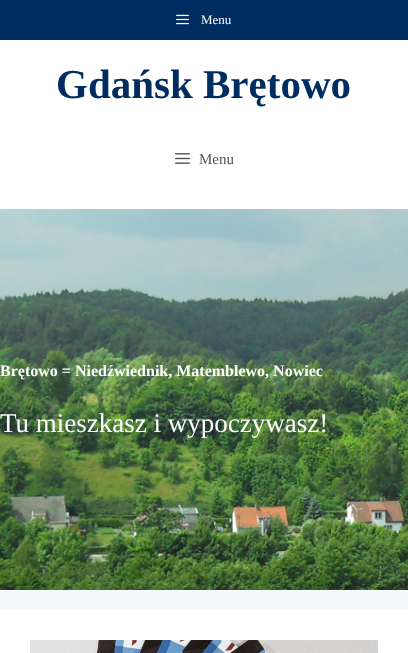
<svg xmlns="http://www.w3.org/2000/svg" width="408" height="653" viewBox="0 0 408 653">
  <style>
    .t1 { font: 13px Liberation Serif; fill: #fff; }
    .t2 { font: bold 41px Liberation Serif; fill: #002d60; }
    .t3 { font: 15px Liberation Serif; fill: #515151; }
    .t4 { font: bold 16px Liberation Serif; fill: #fff; }
    .t5 { font: 27px Liberation Serif; fill: #fff; }
  </style>
  <rect width="100%" height="100%" fill="#f7f8f9"/>
  <rect x="0" y="0" width="408" height="40" fill="#002d60"/>
  <image x="176" y="14" width="13" height="11" href="images/1.png"/>
  <text x="201" y="24" class="t1">Menu</text>
  <rect x="0" y="40" width="408" height="169" fill="#fff"/>
  <text x="56" y="98" class="t2">Gdańsk Brętowo</text>
  <image x="175" y="153" width="15" height="11" href="images/2.png"/>
  <text x="199" y="164" class="t3">Menu</text>
  <image x="0" y="209" width="408" height="381" href="images/3.png"/>
  <text x="0" y="376" class="t4">Brętowo = Niedźwiednik, Matemblewo, Nowiec</text>
  <text x="0" y="432" class="t5">Tu mieszkasz i wypoczywasz!</text>
  <rect x="0" y="610" width="408" height="43" fill="#fff"/>
  <image x="30" y="640" width="348" height="13" href="images/4.png"/>
</svg>
